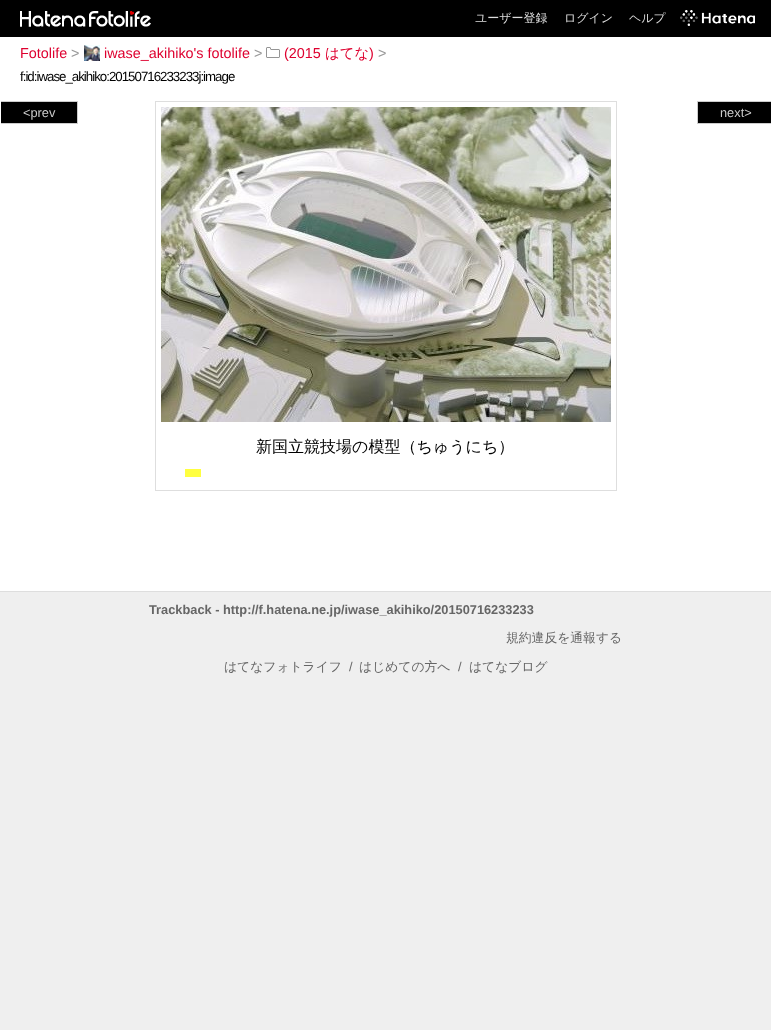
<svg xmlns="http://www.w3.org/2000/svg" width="771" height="1030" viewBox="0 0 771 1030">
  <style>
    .t1 { font: 500 12px WenQuanYi Zen Hei; fill: #ddd; }
    .t2 { font: 14.4px Liberation Sans; fill: #de002f; }
    .t3 { font: 14.4px Liberation Sans; fill: #999; }
    .t4 { font: 500 14.4px WenQuanYi Zen Hei; fill: #de002f; }
    .t5 { font: 13.3px Liberation Sans; letter-spacing: -1px; fill: #000; }
    .t6 { font: 12.8px Liberation Sans; fill: #ccc; }
    .t7 { font: 500 16px WenQuanYi Zen Hei; fill: #000; }
    .t8 { font: bold 12.8px Liberation Sans; fill: #666; }
    .t9 { font: 500 12.8px WenQuanYi Zen Hei; fill: #666; }
    .t10 { font: 12.8px Liberation Sans; fill: #666; }
  </style>
  <rect width="100%" height="100%" fill="#efefef"/>
  <rect x="0" y="0" width="771" height="37" fill="#000"/>
  <image x="20" y="11" width="66" height="16" href="images/1.png"/>
  <image x="89" y="11" width="62" height="16" href="images/2.png"/>
  <text x="475" y="22" class="t1">ユーザー登録</text>
  <text x="564" y="22" class="t1">ログイン</text>
  <text x="629" y="22" class="t1">ヘルプ</text>
  <image x="680" y="10" width="75" height="16" href="images/3.png"/>
  <rect x="0" y="37" width="771" height="554" fill="#fff"/>
  <text x="20" y="58" class="t2">Fotolife</text>
  <text x="71" y="58" class="t3">&gt;</text>
  <image x="84" y="45" width="16" height="16" href="images/4.png"/>
  <text x="104" y="58" class="t2">iwase_akihiko's fotolife</text>
  <text x="254" y="58" class="t3">&gt;</text>
  <image x="266" y="47" width="14" height="11" href="images/5.png"/>
  <text x="284" y="58" class="t2">(2015</text>
  <text x="325" y="58" class="t4">はてな</text>
  <text x="369" y="58" class="t2">)</text>
  <text x="378" y="58" class="t3">&gt;</text>
  <text x="20" y="81" class="t5">f:id:iwase_akihiko:20150716233233j:image</text>
  <rect x="0" y="591" width="771" height="1" fill="#dedede"/>
  <rect x="1" y="102" width="76" height="21" fill="#000"/>
  <rect x="1" y="101" width="77" height="1" fill="#ccc"/>
  <rect x="77" y="101" width="1" height="23" fill="#ccc"/>
  <rect x="1" y="123" width="77" height="1" fill="#ccc"/>
  <text x="23" y="117" class="t6">&lt;prev</text>
  <rect x="698" y="102" width="73" height="21" fill="#000"/>
  <rect x="697" y="101" width="74" height="1" fill="#ccc"/>
  <rect x="697" y="123" width="74" height="1" fill="#ccc"/>
  <rect x="697" y="101" width="1" height="23" fill="#ccc"/>
  <text x="720" y="117" class="t6">next&gt;</text>
  <rect x="155.5" y="101.5" width="461" height="389" fill="none" stroke="#dedede"/>
  <image x="161" y="107" width="450" height="315" href="images/6.png"/>
  <text x="256" y="452" class="t7">新国立競技場の模型（ちゅうにち）</text>
  <rect x="185" y="469" width="16" height="8" fill="#ffff40"/>
  <text x="149" y="614" class="t8">Trackback - http://f.hatena.ne.jp/iwase_akihiko/20150716233233</text>
  <text x="506" y="642" class="t9">規約違反を通報する</text>
  <text x="224" y="671" class="t9">はてなフォトライフ</text>
  <text x="349" y="671" class="t10">/</text>
  <text x="359" y="671" class="t9">はじめての方へ</text>
  <text x="458" y="671" class="t10">/</text>
  <text x="469" y="671" class="t9">はてなブログ</text>
</svg>
